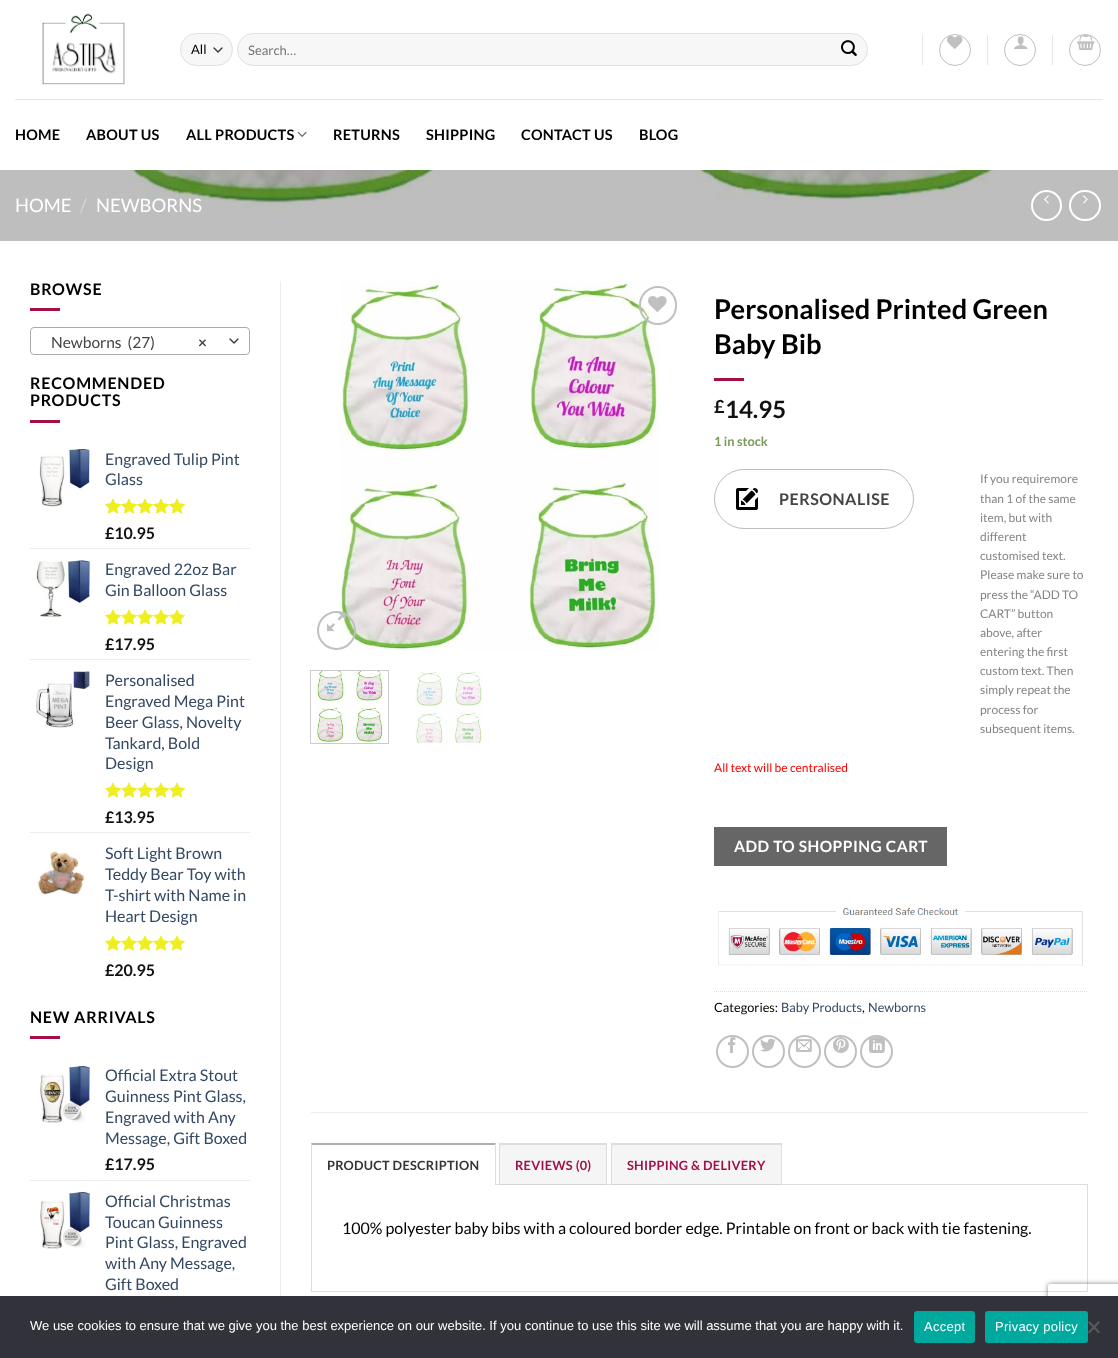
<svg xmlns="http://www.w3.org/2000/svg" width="1118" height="1358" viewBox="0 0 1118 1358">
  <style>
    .t1 { font: 13px Lato; fill: #000; }
    .t2 { font: 13px Lato; fill: #757575; }
    .t3 { font: bold 14.5px Lato; letter-spacing: 0.25px; fill: #000; }
    .t4 { font: 18.5px Lato; fill: #fff; }
    .t5 { font: 18.5px Lato; fill: #d5d5d5; }
    .t6 { font: bold 16px Lato; letter-spacing: 0.75px; fill: #000; }
    .t7 { font: 15.5px Lato; fill: #444; }
    .t8 { font: bold 15.5px Lato; fill: #444; }
    .t9 { font: 16px Lato; fill: #334862; }
    .t10 { font: bold 16px Lato; fill: #111; }
    .t11 { font: bold 27.25px Lato; fill: #000; }
    .t12 { font: bold 18px Lato; fill: #111; }
    .t13 { font: bold 24px Lato; fill: #111; }
    .t14 { font: bold 12.75px Lato; fill: #7a9c59; }
    .t15 { font: bold 16px Lato; letter-spacing: 0.5px; fill: #444; }
    .t16 { font: 12px Lato; fill: #858585; }
    .t17 { font: 12px Lato; fill: #f00; }
    .t18 { font: bold 15.5px Lato; letter-spacing: 0.5px; fill: #fff; }
    .t19 { font: 12.75px Lato; fill: #000; }
    .t20 { font: 12.75px Lato; fill: #334862; }
    .t21 { font: bold 12.75px Lato; letter-spacing: 0.25px; fill: #353535; }
    .t22 { font: bold 12.75px Lato; letter-spacing: 0.25px; fill: #a30f48; }
    .t23 { font: 16px Lato; fill: #000; }
    .t24 { font: 13px Liberation Sans; fill: #fff; }
    .t25 { font: 13px Liberation Sans; letter-spacing: 0.25px; fill: #fff; }
  </style>
  <defs>
    <clipPath id="clip1"><path d="M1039 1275H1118V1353H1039ZM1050 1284H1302C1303 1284 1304 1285 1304 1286V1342C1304 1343 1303 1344 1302 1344H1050C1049 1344 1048 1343 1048 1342V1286C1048 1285 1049 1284 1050 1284Z" clip-rule="evenodd"/></clipPath>
  </defs>
  <rect width="100%" height="100%" fill="#fff"/>
  <image x="42" y="13" width="83" height="72" href="images/1.png"/>
  <rect x="180" y="33" width="53" height="33" rx="16.5" fill="#f7f7f7"/>
  <path d="M214 48L218 52L222 48" fill="none" stroke="#333" stroke-width="1.3" stroke-linecap="round" stroke-linejoin="round"/>
  <rect x="180.5" y="33.5" width="52" height="32" rx="16" fill="none" stroke="#00000017"/>
  <text x="191" y="54" class="t1">All</text>
  <rect x="237" y="33" width="631" height="33" rx="16.5" fill="#f7f7f7"/>
  <rect x="237.5" y="33.5" width="630" height="32" rx="16" fill="none" stroke="#00000017"/>
  <text x="248" y="55" class="t2">Search…</text>
  <image x="841" y="40" width="16" height="16" href="images/2.png"/>
  <rect x="922" y="35" width="1" height="30" fill="#e6e6e6"/>
  <circle cx="955" cy="50" r="15.5" fill="none" stroke="#c0c0c0"/>
  <image x="947" y="35" width="16" height="14" href="images/3.png"/>
  <rect x="987" y="35" width="1" height="30" fill="#e6e6e6"/>
  <circle cx="1020" cy="50" r="15.5" fill="none" stroke="#c0c0c0"/>
  <image x="1014" y="36" width="14" height="13" href="images/4.png"/>
  <rect x="1052" y="35" width="1" height="30" fill="#e6e6e6"/>
  <circle cx="1085" cy="50" r="15.5" fill="none" stroke="#c0c0c0"/>
  <image x="1077" y="35" width="18" height="16" href="images/5.png"/>
  <rect x="15" y="99" width="1088" height="1" fill="#e6e6e6"/>
  <text x="15" y="140" class="t3">HOME</text>
  <text x="86" y="140" class="t3">ABOUT US</text>
  <text x="186" y="140" class="t3">ALL PRODUCTS</text>
  <image x="297" y="131" width="10" height="6" href="images/6.png"/>
  <text x="333" y="140" class="t3">RETURNS</text>
  <text x="426" y="140" class="t3">SHIPPING</text>
  <text x="521" y="140" class="t3">CONTACT US</text>
  <text x="639" y="140" class="t3">BLOG</text>
  <image x="0" y="170" width="1118" height="71" href="images/7.png"/>
  <text x="15" y="212" class="t4">HOME</text>
  <text x="80" y="212" class="t5">/</text>
  <text x="96" y="212" class="t4">NEWBORNS</text>
  <circle cx="1046.5" cy="205.5" r="14.5" fill="none" stroke="#fff" stroke-width="2"/>
  <image x="1044" y="195" width="5" height="9" href="images/8.png"/>
  <rect x="1070" y="191" width="30" height="29" rx="14.5" fill="none" stroke="#fff" stroke-width="2"/>
  <image x="1083" y="195" width="5" height="9" href="images/9.png"/>
  <text x="30" y="295" class="t6">BROWSE</text>
  <rect x="30" y="308" width="30" height="3" fill="#a30f48"/>
  <path d="M230 339L234 343L238 339" fill="none" stroke="#333" stroke-width="1.3" stroke-linecap="round" stroke-linejoin="round"/>
  <rect x="30.5" y="327.5" width="219" height="27" rx="3.5" fill="none" stroke="#aaa"/>
  <text x="51" y="348" class="t7" xml:space="preserve">Newborns  (27)</text>
  <text x="198" y="348" class="t8">×</text>
  <text x="30" y="389" class="t6">RECOMMENDED</text>
  <text x="30" y="406" class="t6">PRODUCTS</text>
  <rect x="30" y="420" width="30" height="3" fill="#a30f48"/>
  <image x="39" y="449" width="51" height="58" href="images/10.png"/>
  <text x="105" y="465" class="t9">Engraved Tulip Pint</text>
  <text x="105" y="485" class="t9">Glass</text>
  <image x="105" y="498" width="80" height="16" href="images/11.png"/>
  <image x="105" y="498" width="80" height="16" href="images/12.png"/>
  <text x="105" y="539" class="t10">£10.95</text>
  <rect x="30" y="548" width="220" height="1" fill="#ececec"/>
  <image x="36" y="559" width="54" height="58" href="images/13.png"/>
  <text x="105" y="575" class="t9">Engraved 22oz Bar</text>
  <text x="105" y="596" class="t9">Gin Balloon Glass</text>
  <image x="105" y="609" width="80" height="16" href="images/11.png"/>
  <image x="105" y="609" width="80" height="16" href="images/12.png"/>
  <text x="105" y="650" class="t10">£17.95</text>
  <rect x="30" y="659" width="220" height="1" fill="#ececec"/>
  <image x="36" y="670" width="54" height="58" href="images/14.png"/>
  <text x="105" y="686" class="t9">Personalised</text>
  <text x="105" y="707" class="t9">Engraved Mega Pint</text>
  <text x="105" y="728" class="t9">Beer Glass, Novelty</text>
  <text x="105" y="749" class="t9">Tankard, Bold</text>
  <text x="105" y="769" class="t9">Design</text>
  <image x="105" y="782" width="80" height="16" href="images/11.png"/>
  <image x="105" y="782" width="80" height="16" href="images/12.png"/>
  <text x="105" y="823" class="t10">£13.95</text>
  <rect x="30" y="832" width="220" height="1" fill="#ececec"/>
  <image x="35" y="849" width="52" height="47" href="images/15.png"/>
  <text x="105" y="859" class="t9">Soft Light Brown</text>
  <text x="105" y="880" class="t9">Teddy Bear Toy with</text>
  <text x="105" y="901" class="t9">T-shirt with Name in</text>
  <text x="105" y="922" class="t9">Heart Design</text>
  <image x="105" y="935" width="80" height="16" href="images/11.png"/>
  <image x="105" y="935" width="80" height="16" href="images/12.png"/>
  <text x="105" y="976" class="t10">£20.95</text>
  <text x="30" y="1023" class="t6">NEW ARRIVALS</text>
  <rect x="30" y="1036" width="30" height="3" fill="#a30f48"/>
  <image x="40" y="1065" width="50" height="58" href="images/16.png"/>
  <text x="105" y="1081" class="t9">Official Extra Stout</text>
  <text x="105" y="1102" class="t9">Guinness Pint Glass,</text>
  <text x="105" y="1123" class="t9">Engraved with Any</text>
  <text x="105" y="1144" class="t9">Message, Gift Boxed</text>
  <text x="105" y="1170" class="t10">£17.95</text>
  <rect x="30" y="1180" width="220" height="1" fill="#ececec"/>
  <image x="40" y="1191" width="50" height="58" href="images/17.png"/>
  <text x="105" y="1207" class="t9">Official Christmas</text>
  <text x="105" y="1228" class="t9">Toucan Guinness</text>
  <text x="105" y="1248" class="t9">Pint Glass, Engraved</text>
  <text x="105" y="1269" class="t9">with Any Message,</text>
  <text x="105" y="1290" class="t9">Gift Boxed</text>
  <rect x="280" y="281" width="1" height="1015" fill="#ececec"/>
  <image x="340" y="281" width="320" height="370" href="images/18.png"/>
  <rect x="640" y="287" width="36" height="37" rx="18" fill="none" stroke="#c0c0c0" stroke-width="2"/>
  <image x="648" y="296" width="19" height="16" href="images/19.png"/>
  <circle cx="336.5" cy="630.5" r="18.5" fill="none" stroke="#c0c0c0" stroke-width="2"/>
  <image x="327" y="612" width="19" height="20" href="images/20.png"/>
  <rect x="310.5" y="670.5" width="78" height="73" fill="none" stroke="#ccc"/>
  <image x="315" y="671" width="70" height="72" href="images/21.png"/>
  <image x="414" y="671" width="69" height="72" href="images/22.png"/>
  <text x="714" y="319" class="t11">Personalised Printed Green</text>
  <text x="714" y="354" class="t11">Baby Bib</text>
  <rect x="714" y="378" width="30" height="3" fill="#a30f48"/>
  <text x="714" y="413" class="t12">£</text>
  <text x="725" y="418" class="t13">14.95</text>
  <text x="714" y="446" class="t14">1 in stock</text>
  <rect x="714.5" y="469.5" width="199" height="59" rx="29.5" fill="none" stroke="#bcbcbd"/>
  <image x="736" y="488" width="22" height="22" href="images/23.png"/>
  <text x="779" y="505" class="t15">PERSONALISE</text>
  <text x="980" y="483" class="t16">If you requiremore</text>
  <text x="980" y="503" class="t16">than 1 of the same</text>
  <text x="980" y="522" class="t16">item, but with</text>
  <text x="980" y="541" class="t16">different</text>
  <text x="980" y="560" class="t16">customised text.</text>
  <text x="980" y="579" class="t16">Please make sure to</text>
  <text x="980" y="599" class="t16">press the “ADD TO</text>
  <text x="980" y="618" class="t16">CART” button</text>
  <text x="980" y="637" class="t16">above, after</text>
  <text x="980" y="656" class="t16">entering the first</text>
  <text x="980" y="675" class="t16">custom text. Then</text>
  <text x="980" y="694" class="t16">simply repeat the</text>
  <text x="980" y="714" class="t16">process for</text>
  <text x="980" y="733" class="t16">subsequent items.</text>
  <text x="714" y="772" class="t17">All text will be centralised</text>
  <rect x="714" y="827" width="233" height="39" fill="#666"/>
  <text x="734" y="852" class="t18">ADD TO SHOPPING CART</text>
  <image x="718" y="908" width="365" height="58" href="images/24.png"/>
  <path d="M714 991.5H1088" fill="none" stroke="#ddd" stroke-dasharray="1 1"/>
  <text x="714" y="1012" class="t19">Categories:</text>
  <text x="781" y="1012" class="t20">Baby Products</text>
  <text x="862" y="1012" class="t19">,</text>
  <text x="868" y="1012" class="t20">Newborns</text>
  <circle cx="732.5" cy="1051.5" r="15.5" fill="none" stroke="#c0c0c0" stroke-width="2"/>
  <image x="728" y="1037" width="8" height="16" href="images/25.png"/>
  <circle cx="768.5" cy="1051.5" r="15.5" fill="none" stroke="#c0c0c0" stroke-width="2"/>
  <image x="760" y="1038" width="16" height="14" href="images/26.png"/>
  <circle cx="804.5" cy="1051.5" r="15.5" fill="none" stroke="#c0c0c0" stroke-width="2"/>
  <image x="796" y="1039" width="16" height="13" href="images/27.png"/>
  <circle cx="840.5" cy="1051.5" r="15.5" fill="none" stroke="#c0c0c0" stroke-width="2"/>
  <image x="833" y="1037" width="16" height="16" href="images/28.png"/>
  <circle cx="876.5" cy="1051.5" r="15.5" fill="none" stroke="#c0c0c0" stroke-width="2"/>
  <image x="869" y="1037" width="16" height="16" href="images/29.png"/>
  <rect x="311" y="1112" width="777" height="1" fill="#ececec"/>
  <rect x="311.5" y="1184.5" width="776" height="107" fill="none" stroke="#ddd"/>
  <rect x="311" y="1184" width="185" height="1" fill="#fff"/>
  <path d="M311 1143H496L495 1145H312Z" fill="#afafaf"/>
  <path d="M496 1143V1185H495V1145Z" fill="#ddd"/>
  <path d="M311 1185V1143L312 1145V1185Z" fill="#ddd"/>
  <text x="327" y="1170" class="t21">PRODUCT DESCRIPTION</text>
  <rect x="500" y="1145" width="106" height="40" fill="#0000000a"/>
  <rect x="499" y="1143" width="108" height="2" fill="#ddd"/>
  <rect x="606" y="1143" width="1" height="42" fill="#ddd"/>
  <rect x="499" y="1143" width="1" height="42" fill="#ddd"/>
  <text x="515" y="1170" class="t22">REVIEWS (0)</text>
  <rect x="612" y="1145" width="169" height="40" fill="#0000000a"/>
  <rect x="611" y="1143" width="171" height="2" fill="#ddd"/>
  <rect x="781" y="1143" width="1" height="42" fill="#ddd"/>
  <rect x="611" y="1143" width="1" height="42" fill="#ddd"/>
  <text x="627" y="1170" class="t22">SHIPPING &amp; DELIVERY</text>
  <text x="342" y="1234" class="t23">100% polyester baby bibs with a coloured border edge. Printable on front or back with tie fastening.</text>
  <g clip-path="url(#clip1)">
    <rect x="1048" y="1284" width="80" height="60" rx="2" fill="#808080" filter="blur(2.5px)"/>
  </g>
  <rect x="0" y="1296" width="1118" height="62" fill="#32323a"/>
  <text x="30" y="1330" class="t24">We use cookies to ensure that we give you the best experience on our website. If you continue to use this site we will assume that you are happy with it.</text>
  <rect x="914" y="1311" width="61" height="32" rx="3" fill="#00a99d"/>
  <text x="924" y="1331" class="t25">Accept</text>
  <rect x="985" y="1311" width="103" height="32" rx="3" fill="#00a99d"/>
  <text x="995" y="1331" class="t25">Privacy policy</text>
  <path d="M1098.5 1321L1100 1322.5L1089.5 1333.5L1088 1332Z" fill="#59595d"/>
  <path d="M1088 1322.5L1089.5 1321L1100 1332L1098.5 1333.5Z" fill="#59595d"/>
</svg>
